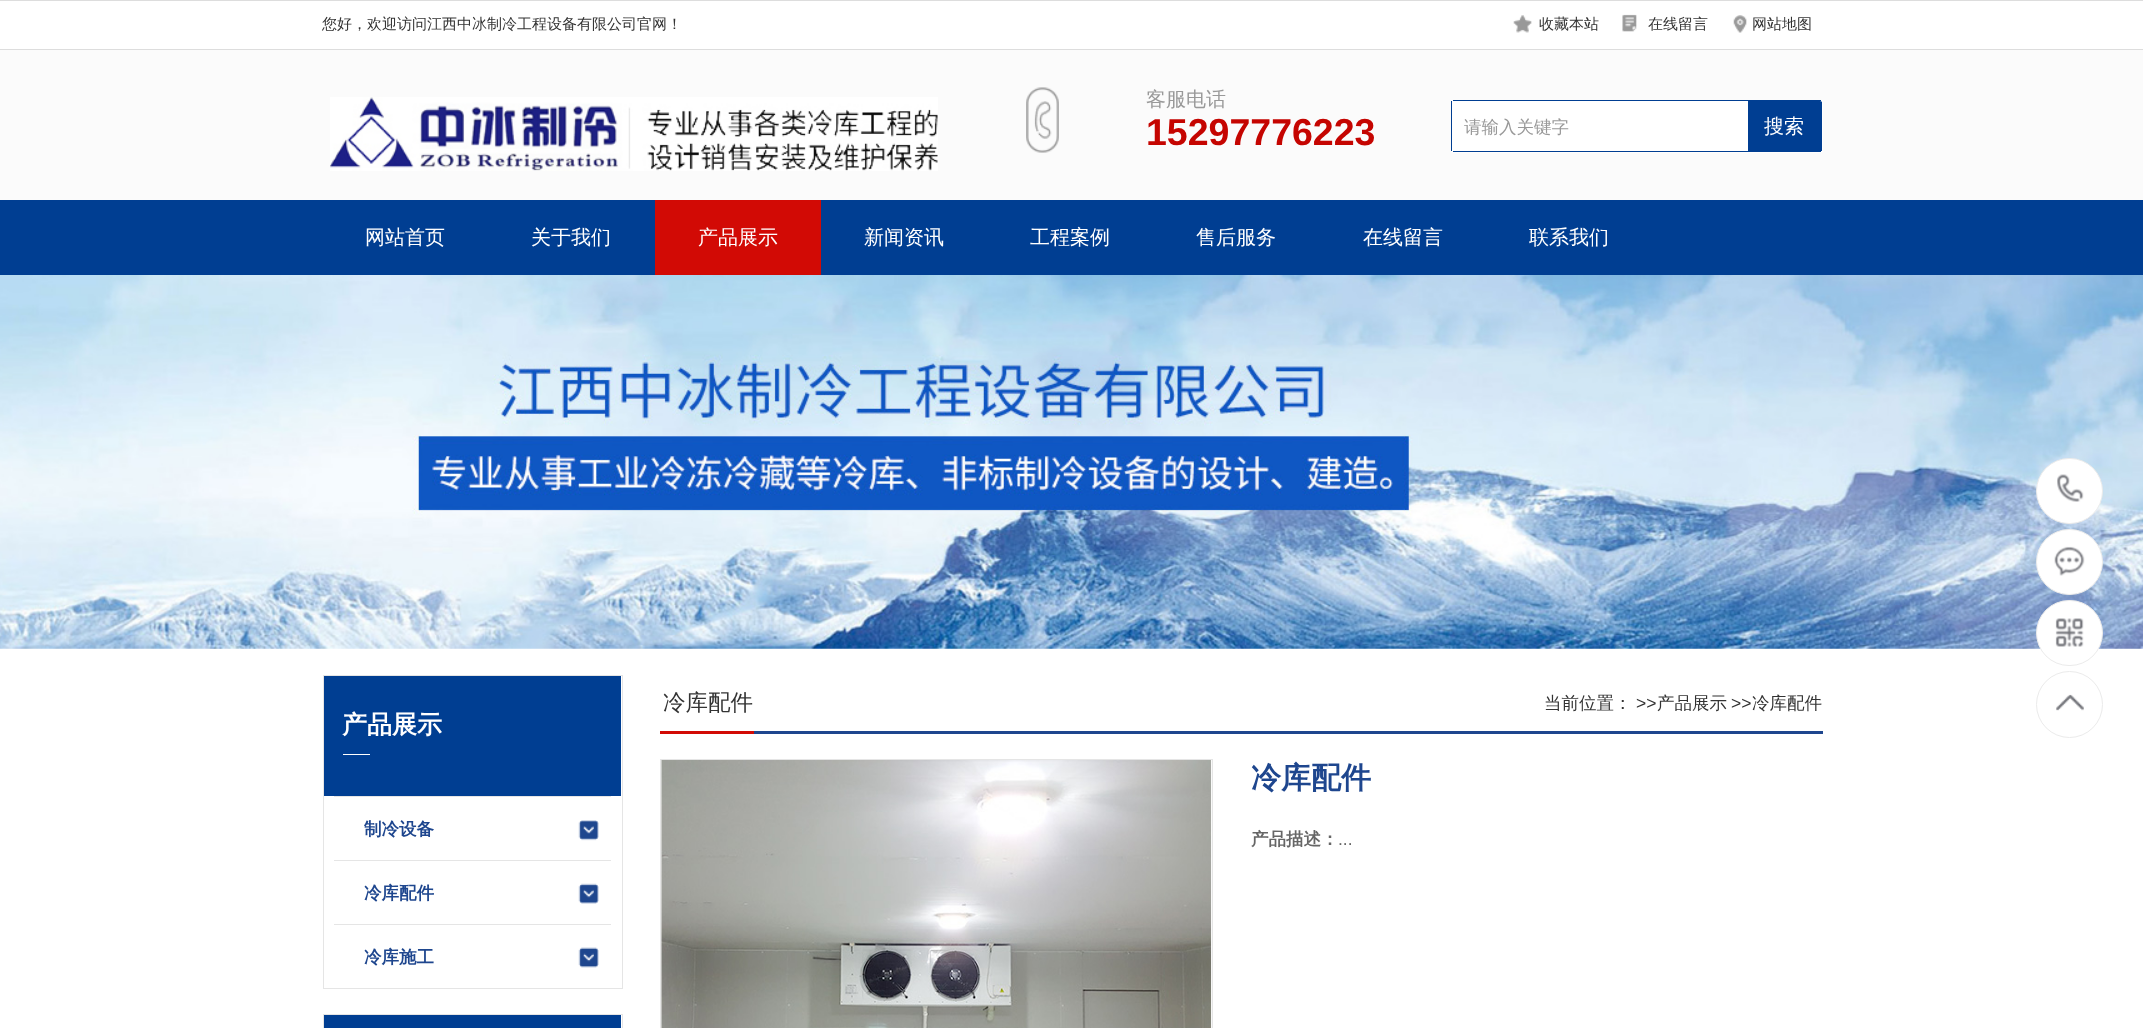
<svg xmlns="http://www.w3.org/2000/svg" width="2143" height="1028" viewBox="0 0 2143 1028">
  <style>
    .t1 { font: 500 15px WenQuanYi Zen Hei; fill: #333; }
    .t2 { font: 500 20px WenQuanYi Zen Hei; fill: #999; }
    .t3 { font: bold 37.5px Liberation Sans; fill: #c50501; }
    .t4 { font: 500 17.5px WenQuanYi Zen Hei; fill: #999; }
    .t5 { font: 500 20px WenQuanYi Zen Hei; fill: #fff; }
    .t6 { font: bold 25px WenQuanYi Zen Hei; fill: #fff; }
    .t7 { font: bold 17.5px WenQuanYi Zen Hei; fill: #1e468e; }
    .t8 { font: 500 22.5px WenQuanYi Zen Hei; fill: #333; }
    .t9 { font: 500 17.5px WenQuanYi Zen Hei; fill: #333; }
    .t10 { font: 17.5px Liberation Sans; fill: #333; }
    .t11 { font: bold 30px WenQuanYi Zen Hei; fill: #1e468e; }
    .t12 { font: bold 17.5px WenQuanYi Zen Hei; fill: #666; }
    .t13 { font: 17.5px Liberation Sans; fill: #666; }
  </style>
  <rect width="100%" height="100%" fill="#fff"/>
  <rect x="0" y="50" width="2143" height="150" fill="#fbfbfb"/>
  <rect x="0" y="0" width="2143" height="1" fill="#ddd"/>
  <rect x="0" y="49" width="2143" height="1" fill="#ddd"/>
  <text x="322" y="29" class="t1">您好，欢迎访问江西中冰制冷工程设备有限公司官网！</text>
  <image x="1513" y="15" width="19" height="18" href="images/1.png"/>
  <text x="1539" y="29" class="t1">收藏本站</text>
  <image x="1622" y="14" width="15" height="18" href="images/2.png"/>
  <text x="1648" y="29" class="t1">在线留言</text>
  <image x="1733" y="15" width="14" height="18" href="images/3.png"/>
  <text x="1752" y="29" class="t1">网站地图</text>
  <image x="330" y="97" width="608" height="74" href="images/4.png"/>
  <image x="1026" y="87" width="33" height="66" href="images/5.png"/>
  <text x="1146" y="106" class="t2">客服电话</text>
  <text x="1146" y="145" class="t3">15297776223</text>
  <rect x="1451" y="100" width="372" height="53" rx="2.5" fill="#fff"/>
  <rect x="1453" y="100" width="368" height="1" fill="#003e92"/>
  <rect x="1453" y="151" width="368" height="1" fill="#003e92"/>
  <rect x="1451" y="101" width="1" height="50" fill="#003e92"/>
  <text x="1464" y="133" class="t4">请输入关键字</text>
  <path d="M1822 151H1748V101H1820C1821 101 1822 102 1822 102V150Z" fill="#003e92"/>
  <text x="1764" y="133" class="t5">搜索</text>
  <rect x="0" y="200" width="2143" height="75" fill="#003e92"/>
  <text x="365" y="244" class="t5">网站首页</text>
  <text x="531" y="244" class="t5">关于我们</text>
  <rect x="655" y="200" width="166" height="75" fill="#d20a05"/>
  <text x="698" y="244" class="t5">产品展示</text>
  <text x="864" y="244" class="t5">新闻资讯</text>
  <text x="1030" y="244" class="t5">工程案例</text>
  <text x="1196" y="244" class="t5">售后服务</text>
  <text x="1363" y="244" class="t5">在线留言</text>
  <text x="1529" y="244" class="t5">联系我们</text>
  <image x="0" y="275" width="2143" height="374" href="images/6.png"/>
  <rect x="2036.5" y="458.5" width="66" height="65" rx="32.5" fill="#fff" stroke="#ebebeb"/>
  <image x="2057" y="474" width="27" height="28" href="images/7.png"/>
  <rect x="2036.5" y="529.5" width="66" height="65" rx="32.5" fill="#fff" stroke="#ebebeb"/>
  <image x="2054" y="546" width="31" height="30" href="images/8.png"/>
  <rect x="2036.5" y="600.5" width="66" height="65" rx="32.5" fill="#fff" stroke="#ebebeb"/>
  <image x="2055" y="618" width="29" height="29" href="images/9.png"/>
  <circle cx="2069.5" cy="704.5" r="33" fill="none" stroke="#ebebeb"/>
  <image x="2056" y="694" width="28" height="17" href="images/10.png"/>
  <rect x="323.5" y="675.5" width="299" height="313" fill="none" stroke="#e5e5e5"/>
  <rect x="324" y="676" width="297" height="120" fill="#003e92"/>
  <text x="342" y="733" class="t6">产品展示</text>
  <rect x="343" y="754" width="27" height="1" fill="#fff"/>
  <rect x="334" y="796" width="277" height="1" fill="#e5e5e5"/>
  <text x="364" y="835" class="t7">制冷设备</text>
  <image x="578" y="820" width="21" height="21" href="images/11.png"/>
  <rect x="334" y="860" width="277" height="1" fill="#e5e5e5"/>
  <text x="364" y="899" class="t7">冷库配件</text>
  <image x="578" y="883" width="21" height="21" href="images/12.png"/>
  <rect x="334" y="924" width="277" height="1" fill="#e5e5e5"/>
  <text x="364" y="963" class="t7">冷库施工</text>
  <image x="578" y="947" width="21" height="21" href="images/13.png"/>
  <rect x="323.5" y="1014.5" width="299" height="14" fill="none" stroke="#e5e5e5"/>
  <rect x="324" y="1015" width="297" height="13" fill="#003e92"/>
  <rect x="754" y="731" width="1069" height="3" fill="#1e468e"/>
  <text x="663" y="710" class="t8">冷库配件</text>
  <rect x="660" y="731" width="94" height="3" fill="#d20a05"/>
  <text x="1544" y="709" class="t9">当前位置：</text>
  <text x="1636" y="709" class="t10">&gt;&gt;</text>
  <text x="1657" y="709" class="t9">产品展示</text>
  <text x="1731" y="709" class="t10">&gt;&gt;</text>
  <text x="1752" y="709" class="t9">冷库配件</text>
  <rect x="660.5" y="759.5" width="552" height="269" fill="none" stroke="#e5e5e5"/>
  <image x="661" y="760" width="551" height="268" href="images/14.png"/>
  <text x="1251" y="788" class="t11">冷库配件</text>
  <text x="1251" y="845" class="t12">产品描述：</text>
  <text x="1338" y="845" class="t13">...</text>
</svg>
